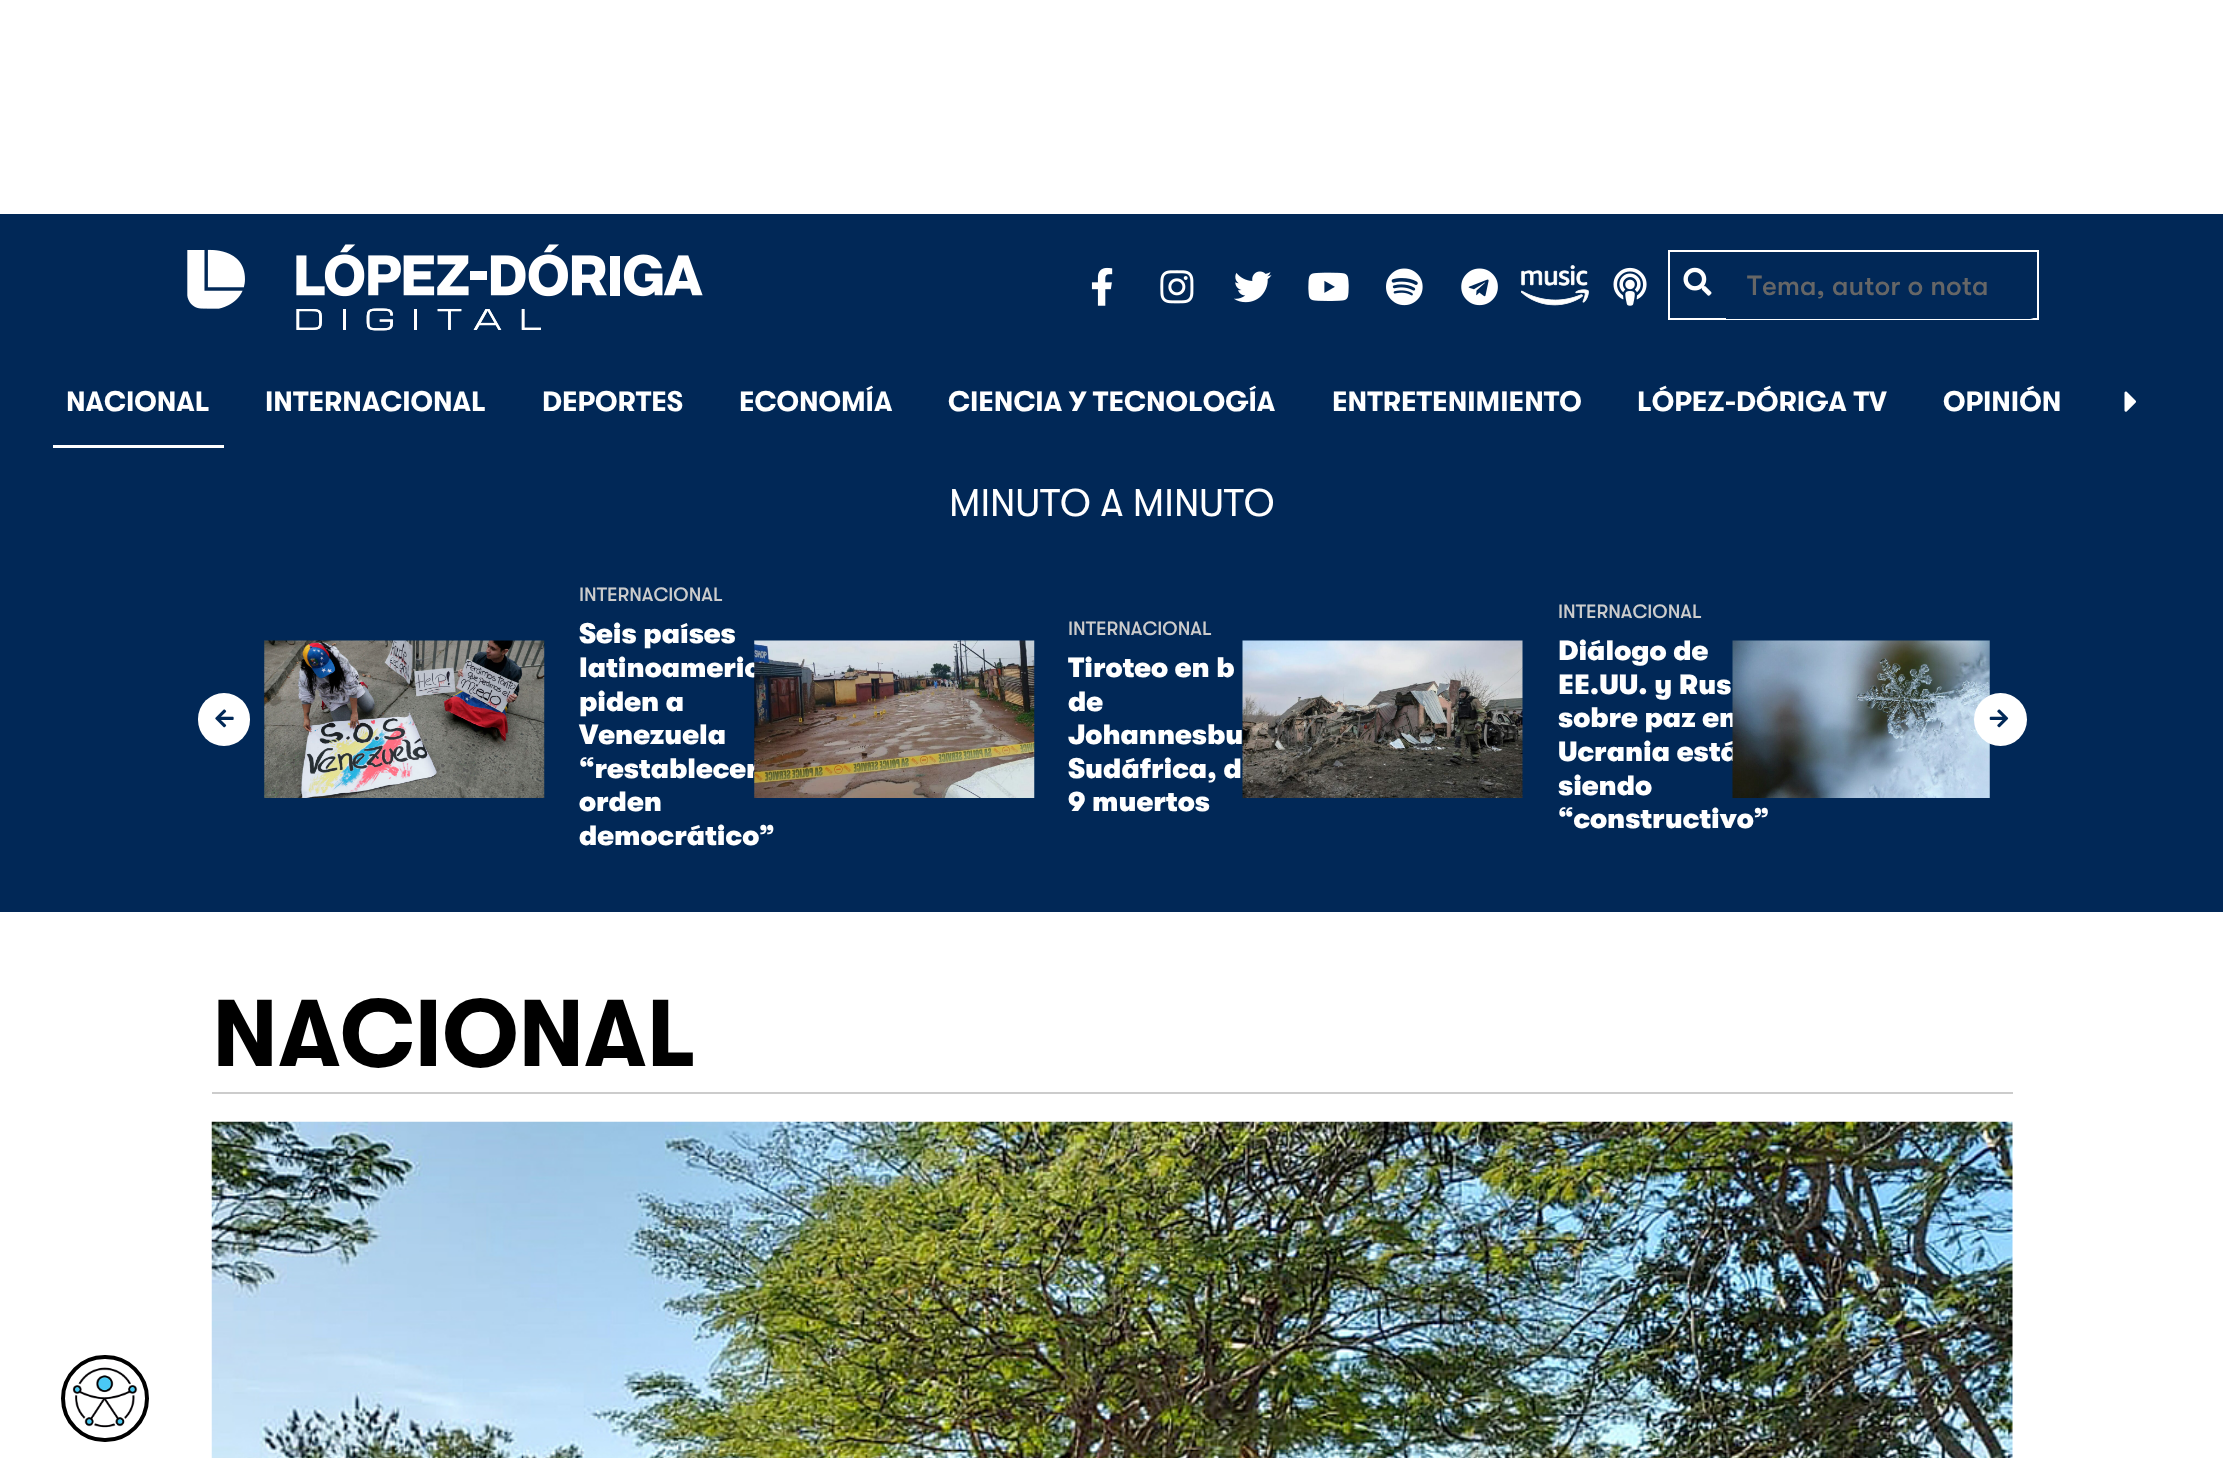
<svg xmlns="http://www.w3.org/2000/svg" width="2223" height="1458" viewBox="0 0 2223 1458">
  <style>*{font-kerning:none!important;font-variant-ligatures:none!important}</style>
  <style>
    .t1 { font: 500 28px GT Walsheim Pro; fill: #666; }
    .t2 { font: bold 28px GT Walsheim Pro; fill: #fff; }
    .t3 { font: 38.5px GT Walsheim Pro; fill: #fff; }
    .t4 { font: 500 19.25px GT Walsheim Pro; fill: #ccc; }
    .t5 { font: 900 28px GT Walsheim Pro; fill: #fff; }
    .t6 { font: bold 94.5px GT Walsheim Pro; fill: #000; }
  </style>
  <rect width="100%" height="100%" fill="#fff"/>
  <rect x="0" y="214" width="2223" height="145" fill="#012857"/>
  <image x="187" y="244" width="516" height="87" href="images/1.png"/>
  <image x="1091" y="267" width="22" height="39" href="images/2.png"/>
  <image x="1160" y="270" width="34" height="34" href="images/3.png"/>
  <image x="1234" y="271" width="38" height="32" href="images/4.png"/>
  <image x="1308" y="272" width="41" height="29" href="images/5.png"/>
  <image x="1386" y="268" width="37" height="38" href="images/6.png"/>
  <image x="1461" y="268" width="37" height="38" href="images/7.png"/>
  <image x="1521" y="265" width="68" height="41" href="images/8.png"/>
  <image x="1613" y="267" width="34" height="39" href="images/9.png"/>
  <rect x="1669" y="251" width="369" height="68" fill="none" stroke="#fff" stroke-width="2"/>
  <image x="1683" y="267" width="29" height="29" href="images/10.png"/>
  <path d="M1726 252H2030C2034 252 2037 255 2037 259V312C2037 316 2034 319 2030 319H1726Z" fill="#012857"/>
  <text x="1747" y="295" class="t1">Tema, autor o nota</text>
  <rect x="0" y="359" width="2223" height="553" fill="#012857"/>
  <rect x="53" y="445" width="171" height="3" fill="#fff"/>
  <text x="66" y="411" class="t2">NACIONAL</text>
  <text x="265" y="411" class="t2">INTERNACIONAL</text>
  <text x="542" y="411" class="t2">DEPORTES</text>
  <text x="739" y="411" class="t2">ECONOMÍA</text>
  <text x="948" y="411" class="t2">CIENCIA Y TECNOLOGÍA</text>
  <text x="1332" y="411" class="t2">ENTRETENIMIENTO</text>
  <text x="1637" y="411" class="t2">LÓPEZ-DÓRIGA TV</text>
  <text x="1943" y="411" class="t2">OPINIÓN</text>
  <image x="2124" y="391" width="12" height="21" href="images/11.png"/>
  <text x="949" y="516" class="t3">MINUTO A MINUTO</text>
  <rect x="198" y="693" width="52" height="53" rx="26" fill="#fff"/>
  <image x="215" y="709" width="19" height="19" href="images/12.png"/>
  <image x="264" y="640" width="281" height="158" href="images/13.png"/>
  <text x="579" y="601" class="t4">INTERNACIONAL</text>
  <text x="579" y="643" class="t5">Seis países</text>
  <text x="579" y="677" class="t5">latinoameric</text>
  <text x="579" y="711" class="t5">piden a</text>
  <text x="579" y="744" class="t5">Venezuela</text>
  <text x="579" y="778" class="t5">“restablecer</text>
  <text x="579" y="811" class="t5">orden</text>
  <text x="579" y="845" class="t5">democrático”</text>
  <image x="754" y="640" width="281" height="158" href="images/14.png"/>
  <text x="1068" y="635" class="t4">INTERNACIONAL</text>
  <text x="1068" y="677" class="t5">Tiroteo en b</text>
  <text x="1068" y="711" class="t5">de</text>
  <text x="1068" y="744" class="t5">Johannesbu</text>
  <text x="1068" y="778" class="t5">Sudáfrica, d</text>
  <text x="1068" y="811" class="t5">9 muertos</text>
  <image x="1242" y="640" width="281" height="158" href="images/15.png"/>
  <text x="1558" y="618" class="t4">INTERNACIONAL</text>
  <text x="1558" y="660" class="t5">Diálogo de</text>
  <text x="1558" y="694" class="t5">EE.UU. y Rus</text>
  <text x="1558" y="727" class="t5">sobre paz en</text>
  <text x="1558" y="761" class="t5">Ucrania está</text>
  <text x="1558" y="795" class="t5">siendo</text>
  <text x="1558" y="828" class="t5">“constructivo”</text>
  <image x="1732" y="640" width="258" height="158" href="images/16.png"/>
  <circle cx="2000.5" cy="719.5" r="26.5" fill="#fff"/>
  <image x="1989" y="709" width="20" height="19" href="images/17.png"/>
  <rect x="212" y="1092" width="1801" height="2" fill="#ccc"/>
  <text x="212" y="1066" class="t6">NACIONAL</text>
  <image x="211" y="1121" width="1802" height="337" href="images/18.png"/>
  <rect x="63" y="1357" width="84" height="83" rx="41.5" fill="none" stroke="#000" stroke-width="4"/>
  <image x="72" y="1367" width="66" height="61" href="images/19.png"/>
</svg>
